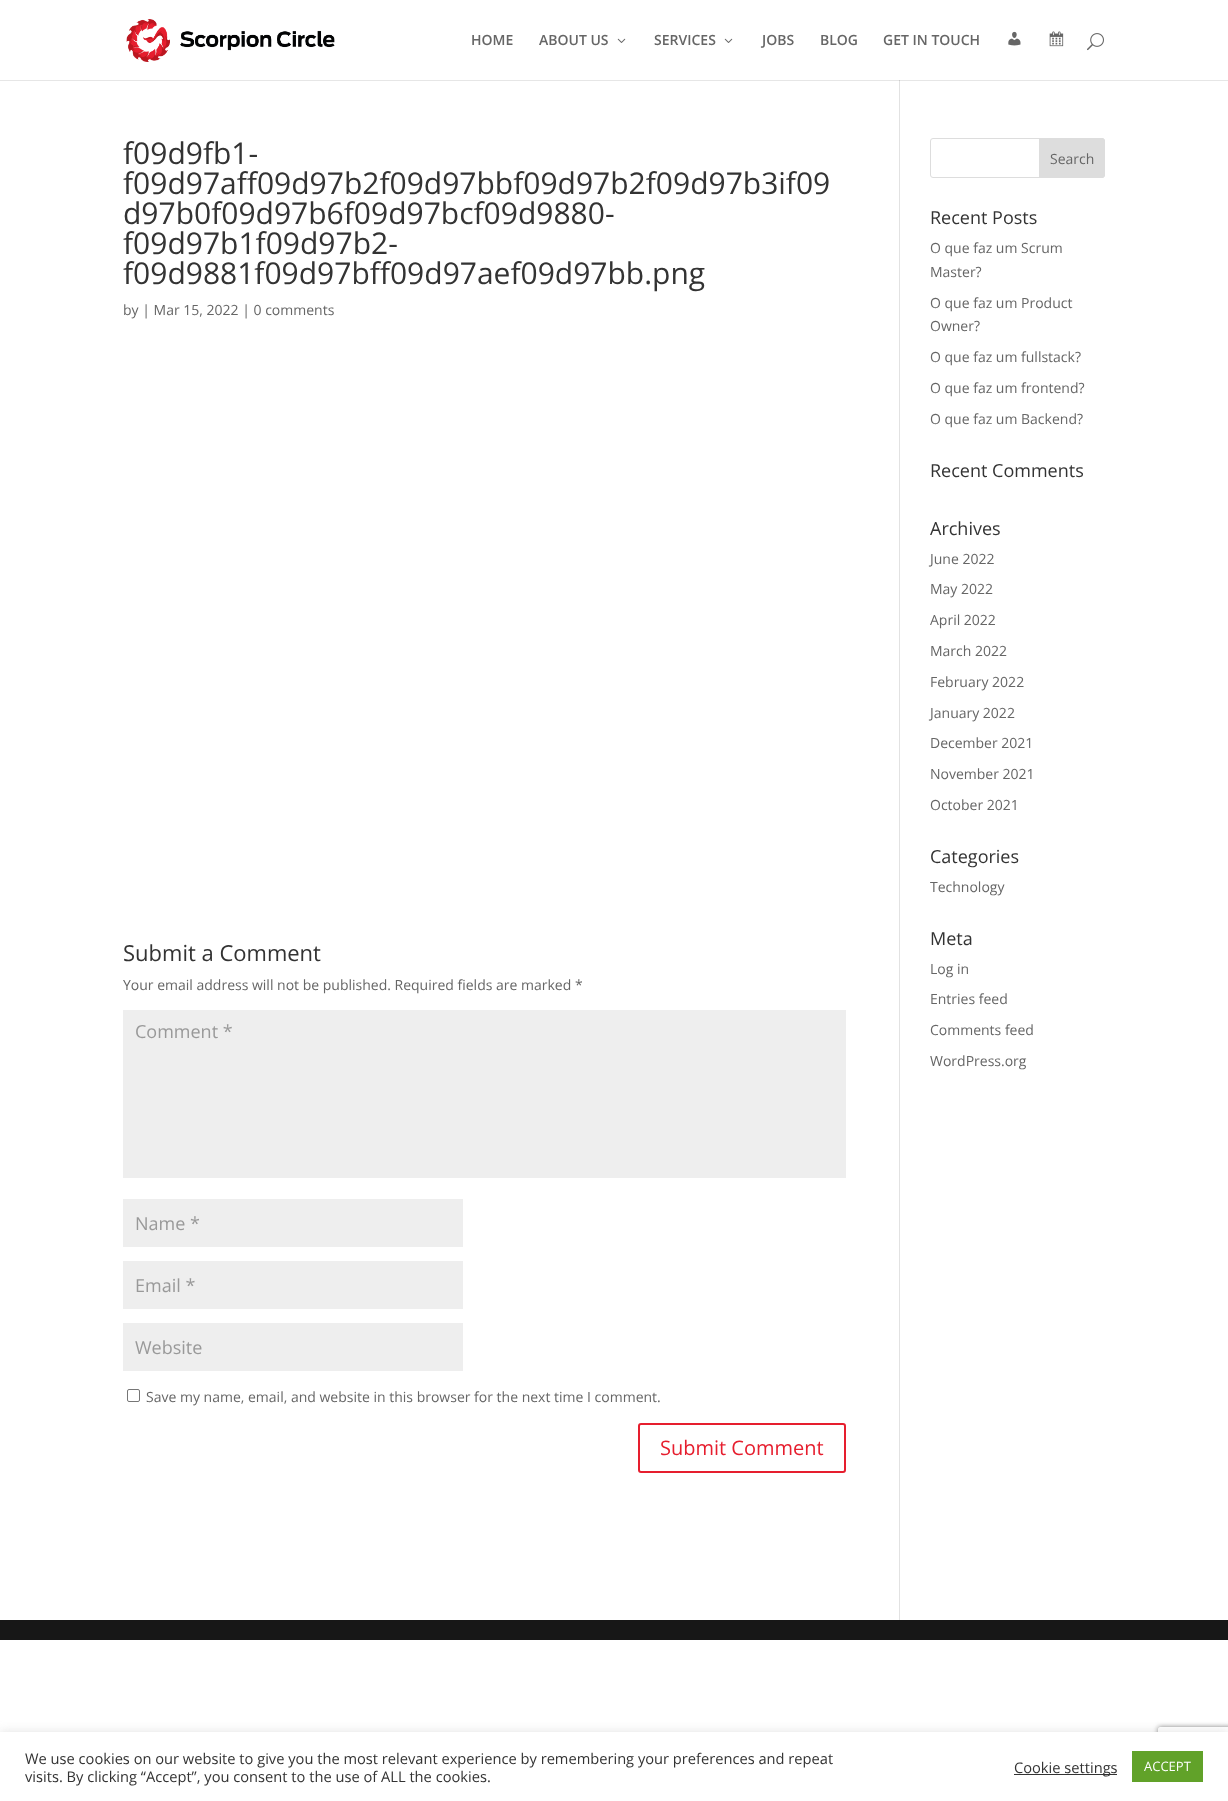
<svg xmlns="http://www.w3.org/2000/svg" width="1228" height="1801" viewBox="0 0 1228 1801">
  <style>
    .t1 { font: 600 14px Open Sans; fill: #666; }
    .t2 { font: 30px Open Sans; fill: #333; }
    .t3 { font: 14px Open Sans; fill: #666; }
    .t4 { font: 22px Open Sans; fill: #333; }
    .t5 { font: 18px Open Sans; fill: #999; }
    .t6 { font: 20px Open Sans; fill: #e61e2e; }
    .t7 { font: 18px Open Sans; fill: #333; }
    .t8 { font: 14.67px Open Sans; fill: #333; }
    .t9 { font: 13px Open Sans; fill: #fff; }
  </style>
  <defs>
    <clipPath id="clip1"><path d="M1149 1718H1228V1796H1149ZM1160 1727H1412C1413 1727 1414 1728 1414 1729V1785C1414 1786 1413 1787 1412 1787H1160C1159 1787 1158 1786 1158 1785V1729C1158 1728 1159 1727 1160 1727Z" clip-rule="evenodd"/></clipPath>
  </defs>
  <rect width="100%" height="100%" fill="#fff"/>
  <rect x="0" y="80" width="1228" height="1" fill="#e6e6e6"/>
  <image x="126" y="19" width="209" height="43" href="images/1.png"/>
  <text x="471" y="45" class="t1">HOME</text>
  <text x="539" y="45" class="t1">ABOUT US</text>
  <image x="617" y="38" width="9" height="5" href="images/2.png"/>
  <text x="654" y="45" class="t1">SERVICES</text>
  <image x="724" y="38" width="9" height="5" href="images/2.png"/>
  <text x="762" y="45" class="t1">JOBS</text>
  <text x="820" y="45" class="t1">BLOG</text>
  <text x="883" y="45" class="t1">GET IN TOUCH</text>
  <image x="1008" y="31" width="13" height="15" href="images/3.png"/>
  <image x="1049" y="31" width="15" height="16" href="images/4.png"/>
  <image x="1087" y="33" width="17" height="18" href="images/5.png"/>
  <rect x="899" y="80" width="1" height="1540" fill="#e2e2e2"/>
  <rect x="899" y="80" width="1" height="1" fill="#cbcbcb"/>
  <text x="123" y="164" class="t2">f09d9fb1-</text>
  <text x="123" y="194" class="t2">f09d97aff09d97b2f09d97bbf09d97b2f09d97b3if09</text>
  <text x="123" y="224" class="t2">d97b0f09d97b6f09d97bcf09d9880-</text>
  <text x="123" y="254" class="t2">f09d97b1f09d97b2-</text>
  <text x="123" y="284" class="t2">f09d9881f09d97bff09d97aef09d97bb.png</text>
  <text x="123" y="315" class="t3">by | Mar 15, 2022 | 0 comments</text>
  <text x="123" y="961" class="t4">Submit a Comment</text>
  <text x="123" y="990" class="t3">Your email address will not be published. Required fields are marked *</text>
  <rect x="123" y="1010" width="723" height="168" fill="#eee"/>
  <text x="135" y="1038" class="t5">Comment *</text>
  <rect x="123" y="1199" width="340" height="48" fill="#eee"/>
  <text x="135" y="1230" class="t5">Name *</text>
  <rect x="123" y="1261" width="340" height="48" fill="#eee"/>
  <text x="135" y="1292" class="t5">Email *</text>
  <rect x="123" y="1323" width="340" height="48" fill="#eee"/>
  <text x="135" y="1354" class="t5">Website</text>
  <rect x="127.5" y="1389.5" width="12" height="12" rx="1.5" fill="none" stroke="#767676"/>
  <text x="146" y="1402" class="t3">Save my name, email, and website in this browser for the next time I comment.</text>
  <rect x="639" y="1424" width="206" height="48" rx="2" fill="none" stroke="#e61e2e" stroke-width="2"/>
  <text x="660" y="1455" class="t6">Submit Comment</text>
  <rect x="930.5" y="138.5" width="174" height="39" rx="2.5" fill="none" stroke="#ddd"/>
  <path d="M1039.5 138.5H1102C1103.5 138.5 1104.5 139.5 1104.5 141V175C1104.5 176.5 1103.5 177.5 1102 177.5H1039.5Z" fill="#ddd" stroke="#ddd"/>
  <text x="1050" y="164" class="t3">Search</text>
  <text x="930" y="224" class="t7">Recent Posts</text>
  <text x="930" y="253" class="t3">O que faz um Scrum</text>
  <text x="930" y="277" class="t3">Master?</text>
  <text x="930" y="308" class="t3">O que faz um Product</text>
  <text x="930" y="331" class="t3">Owner?</text>
  <text x="930" y="362" class="t3">O que faz um fullstack?</text>
  <text x="930" y="393" class="t3">O que faz um frontend?</text>
  <text x="930" y="424" class="t3">O que faz um Backend?</text>
  <text x="930" y="477" class="t7">Recent Comments</text>
  <text x="930" y="535" class="t7">Archives</text>
  <text x="930" y="564" class="t3">June 2022</text>
  <text x="930" y="594" class="t3">May 2022</text>
  <text x="930" y="625" class="t3">April 2022</text>
  <text x="930" y="656" class="t3">March 2022</text>
  <text x="930" y="687" class="t3">February 2022</text>
  <text x="930" y="718" class="t3">January 2022</text>
  <text x="930" y="748" class="t3">December 2021</text>
  <text x="930" y="779" class="t3">November 2021</text>
  <text x="930" y="810" class="t3">October 2021</text>
  <text x="930" y="863" class="t7">Categories</text>
  <text x="930" y="892" class="t3">Technology</text>
  <text x="930" y="945" class="t7">Meta</text>
  <text x="930" y="974" class="t3">Log in</text>
  <text x="930" y="1004" class="t3">Entries feed</text>
  <text x="930" y="1035" class="t3">Comments feed</text>
  <text x="930" y="1066" class="t3">WordPress.org</text>
  <rect x="0" y="1620" width="1228" height="20" fill="#171717"/>
  <g clip-path="url(#clip1)">
    <rect x="1158" y="1727" width="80" height="60" rx="2" fill="#808080" filter="blur(2.5px)"/>
  </g>
  <rect x="0" y="1731" width="1228" height="69" fill="#acabab4d" filter="blur(5px)"/>
  <rect x="0" y="1732" width="1228" height="69" fill="#fff"/>
  <text x="25" y="1764" class="t8">We use cookies on our website to give you the most relevant experience by remembering your preferences and repeat</text>
  <text x="25" y="1782" class="t8">visits. By clicking “Accept”, you consent to the use of ALL the cookies.</text>
  <rect x="1014" y="1774" width="103" height="1" fill="#333"/>
  <text x="1014" y="1773" class="t8">Cookie settings</text>
  <rect x="1132" y="1751" width="71" height="31" fill="#61a229"/>
  <text x="1144" y="1771" class="t9">ACCEPT</text>
</svg>
